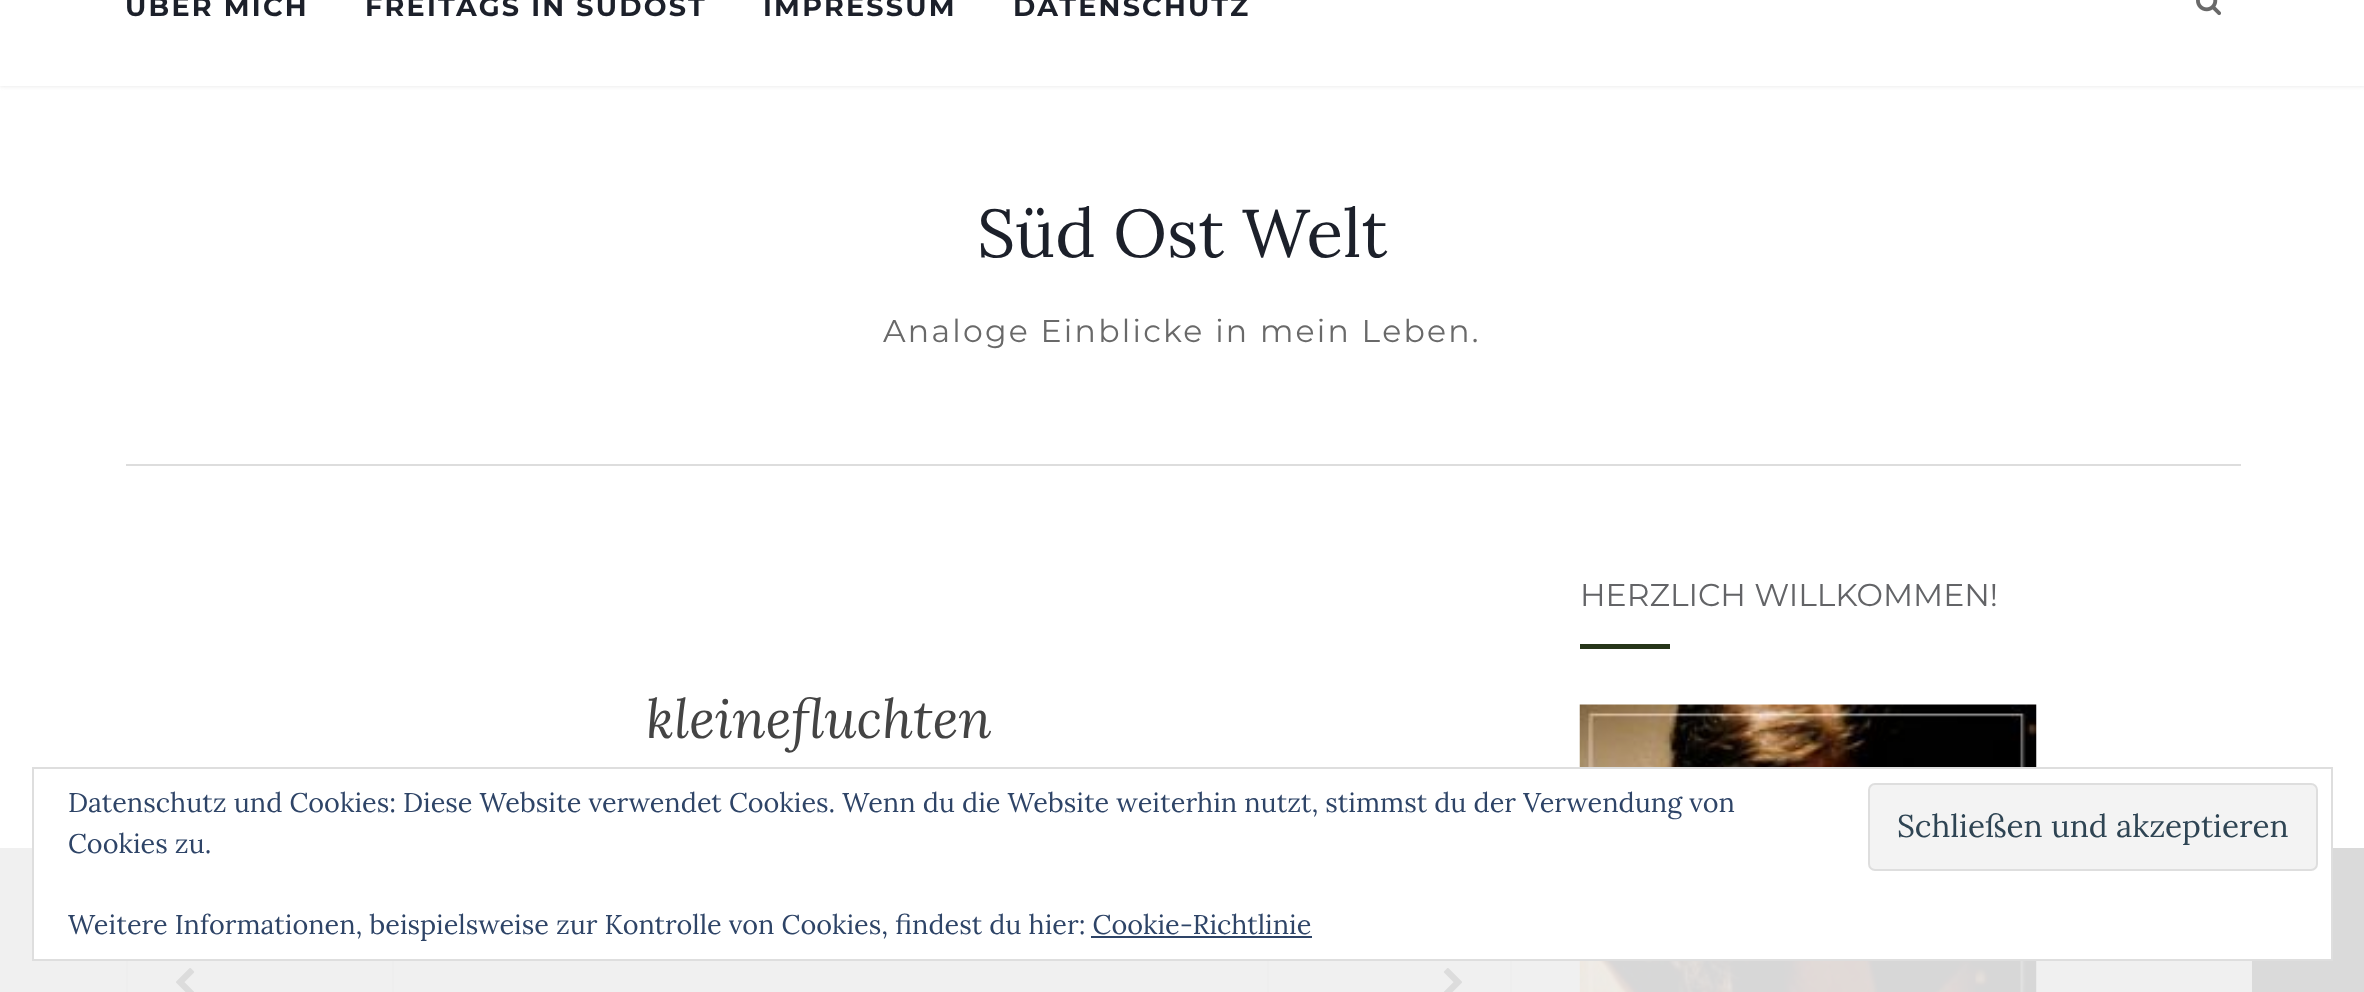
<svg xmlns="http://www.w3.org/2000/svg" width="2364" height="992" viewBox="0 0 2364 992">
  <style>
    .t1 { font: bold 27px Montserrat; letter-spacing: 2.25px; fill: #1c202a; }
    .t2 { font: 67.5px Lora; fill: #1c202a; }
    .t3 { font: 31.5px Montserrat; letter-spacing: 2.25px; fill: #696969; }
    .t4 { font: 31.5px Montserrat; fill: #636467; }
    .t5 { font: italic 54px Lora; fill: #444; }
    .t6 { font: 27px Lora; fill: #2e4467; }
    .t7 { font: 31.5px Lora; fill: #2e4453; }
  </style>
  <rect width="100%" height="100%" fill="#fff"/>
  <rect x="0" y="-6" width="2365" height="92" fill="#e3e3e3" filter="blur(2px)"/>
  <rect x="0" y="0" width="2364" height="86" fill="#fff"/>
  <text x="125" y="16" class="t1">ÜBER MICH</text>
  <text x="365" y="16" class="t1">FREITAGS IN SÜDOST</text>
  <text x="763" y="16" class="t1">IMPRESSUM</text>
  <text x="1013" y="16" class="t1">DATENSCHUTZ</text>
  <image x="2196" y="0" width="25" height="16" href="images/1.png"/>
  <text x="977" y="257" class="t2">Süd Ost Welt</text>
  <text x="883" y="342" class="t3">Analoge Einblicke in mein Leben.</text>
  <rect x="126" y="464" width="2115" height="2" fill="#ddd"/>
  <text x="1580" y="606" class="t4">HERZLICH WILLKOMMEN!</text>
  <rect x="1580" y="644" width="90" height="5" fill="#263519"/>
  <image x="1579" y="704" width="458" height="288" href="images/2.png"/>
  <text x="646" y="738" class="t5">kleinefluchten</text>
  <rect x="127" y="939" width="266" height="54" fill="none" stroke="#e8e8e8" stroke-width="2"/>
  <image x="176" y="968" width="19" height="24" href="images/3.png"/>
  <rect x="1268" y="939" width="243" height="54" fill="none" stroke="#e8e8e8" stroke-width="2"/>
  <image x="1443" y="968" width="19" height="24" href="images/4.png"/>
  <rect x="0" y="848" width="2252" height="144" fill="#eeeeeee6"/>
  <rect x="2252" y="848" width="112" height="144" fill="#dadada"/>
  <rect x="33" y="768" width="2299" height="192" fill="#fff" stroke="#dedede" stroke-width="2"/>
  <text x="68" y="812" class="t6">Datenschutz und Cookies: Diese Website verwendet Cookies. Wenn du die Website weiterhin nutzt, stimmst du der Verwendung von</text>
  <text x="68" y="853" class="t6">Cookies zu.</text>
  <rect x="1869" y="784" width="448" height="86" rx="6" fill="#f3f3f3" stroke="#dedede" stroke-width="2"/>
  <text x="1897" y="837" class="t7">Schließen und akzeptieren</text>
  <text x="68" y="934" class="t6">Weitere Informationen, beispielsweise zur Kontrolle von Cookies, findest du hier: Cookie-Richtlinie</text>
  <rect x="1091" y="936" width="221" height="2" fill="#2e4467"/>
</svg>
